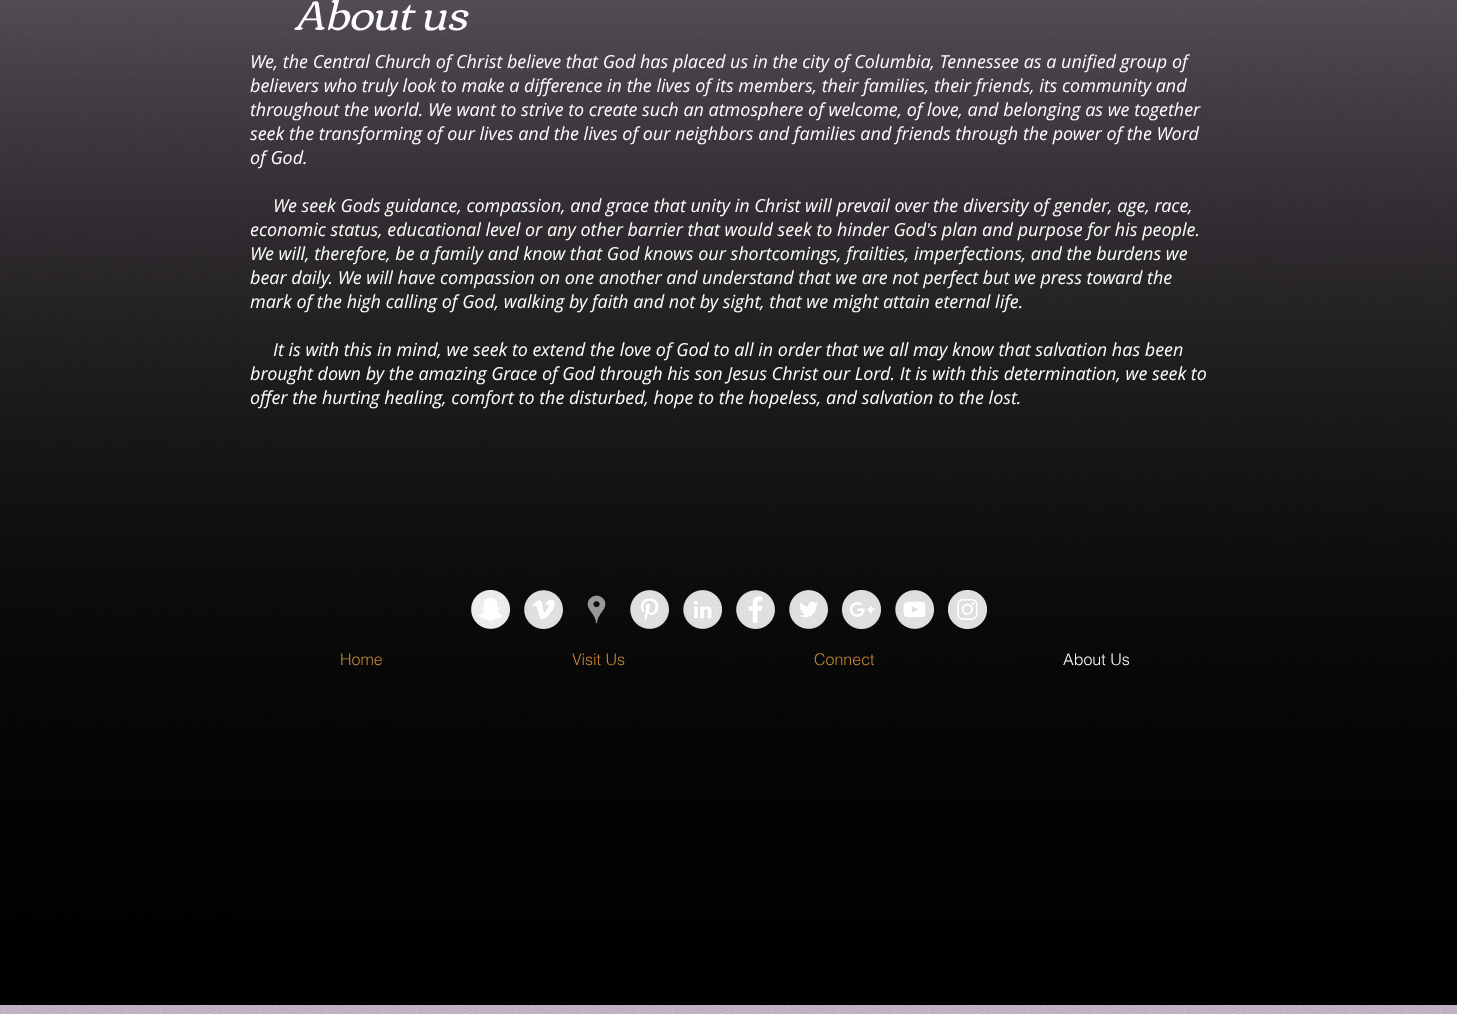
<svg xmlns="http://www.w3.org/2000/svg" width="1457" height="1014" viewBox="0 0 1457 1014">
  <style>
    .t1 { font: italic 42px Corben; fill: #fefdfd; }
    .t2 { font: italic 18px Open Sans; fill: #fefdfd; }
    .t3 { font: 300 16px helvetica; fill: #c68733; }
    .t4 { font: 300 16px helvetica; fill: #fefdfd; }
  </style>
  <rect width="100%" height="100%" fill="#c4b5c8"/>
  <image x="0" y="0" width="1457" height="1014" href="images/1.png"/>
  <image x="0" y="0" width="1457" height="1005" href="images/2.png"/>
  <text x="294" y="30" class="t1">About us</text>
  <text x="250" y="68" class="t2">We, the Central Church of Christ believe that God has placed us in the city of Columbia, Tennessee as a unified group of</text>
  <text x="250" y="92" class="t2">believers who truly look to make a difference in the lives of its members, their families, their friends, its community and</text>
  <text x="250" y="116" class="t2">throughout the world. We want to strive to create such an atmosphere of welcome, of love, and belonging as we together</text>
  <text x="250" y="140" class="t2">seek the transforming of our lives and the lives of our neighbors and families and friends through the power of the Word</text>
  <text x="250" y="164" class="t2">of God.</text>
  <text x="273" y="212" class="t2">We seek Gods guidance, compassion, and grace that unity in Christ will prevail over the diversity of gender, age, race,</text>
  <text x="250" y="236" class="t2">economic status, educational level or any other barrier that would seek to hinder God's plan and purpose for his people.</text>
  <text x="250" y="260" class="t2">We will, therefore, be a family and know that God knows our shortcomings, frailties, imperfections, and the burdens we</text>
  <text x="250" y="284" class="t2">bear daily. We will have compassion on one another and understand that we are not perfect but we press toward the</text>
  <text x="250" y="308" class="t2">mark of the high calling of God, walking by faith and not by sight, that we might attain eternal life.</text>
  <text x="273" y="356" class="t2">It is with this in mind, we seek to extend the love of God to all in order that we all may know that salvation has been</text>
  <text x="250" y="380" class="t2">brought down by the amazing Grace of God through his son Jesus Christ our Lord. It is with this determination, we seek to</text>
  <text x="250" y="404" class="t2">offer the hurting healing, comfort to the disturbed, hope to the hopeless, and salvation to the lost.</text>
  <image x="471" y="590" width="39" height="39" href="images/3.png"/>
  <image x="524" y="590" width="39" height="39" href="images/4.png"/>
  <image x="587" y="595" width="19" height="29" href="images/5.png"/>
  <image x="630" y="590" width="39" height="39" href="images/6.png"/>
  <image x="683" y="590" width="39" height="39" href="images/7.png"/>
  <image x="736" y="590" width="39" height="39" href="images/8.png"/>
  <image x="789" y="590" width="39" height="39" href="images/9.png"/>
  <image x="842" y="590" width="39" height="39" href="images/10.png"/>
  <image x="895" y="590" width="39" height="39" href="images/11.png"/>
  <image x="948" y="590" width="39" height="39" href="images/12.png"/>
  <text x="340" y="665" class="t3">Home</text>
  <text x="572" y="665" class="t3">Visit Us</text>
  <text x="814" y="665" class="t3">Connect</text>
  <text x="1063" y="665" class="t4">About Us</text>
</svg>
